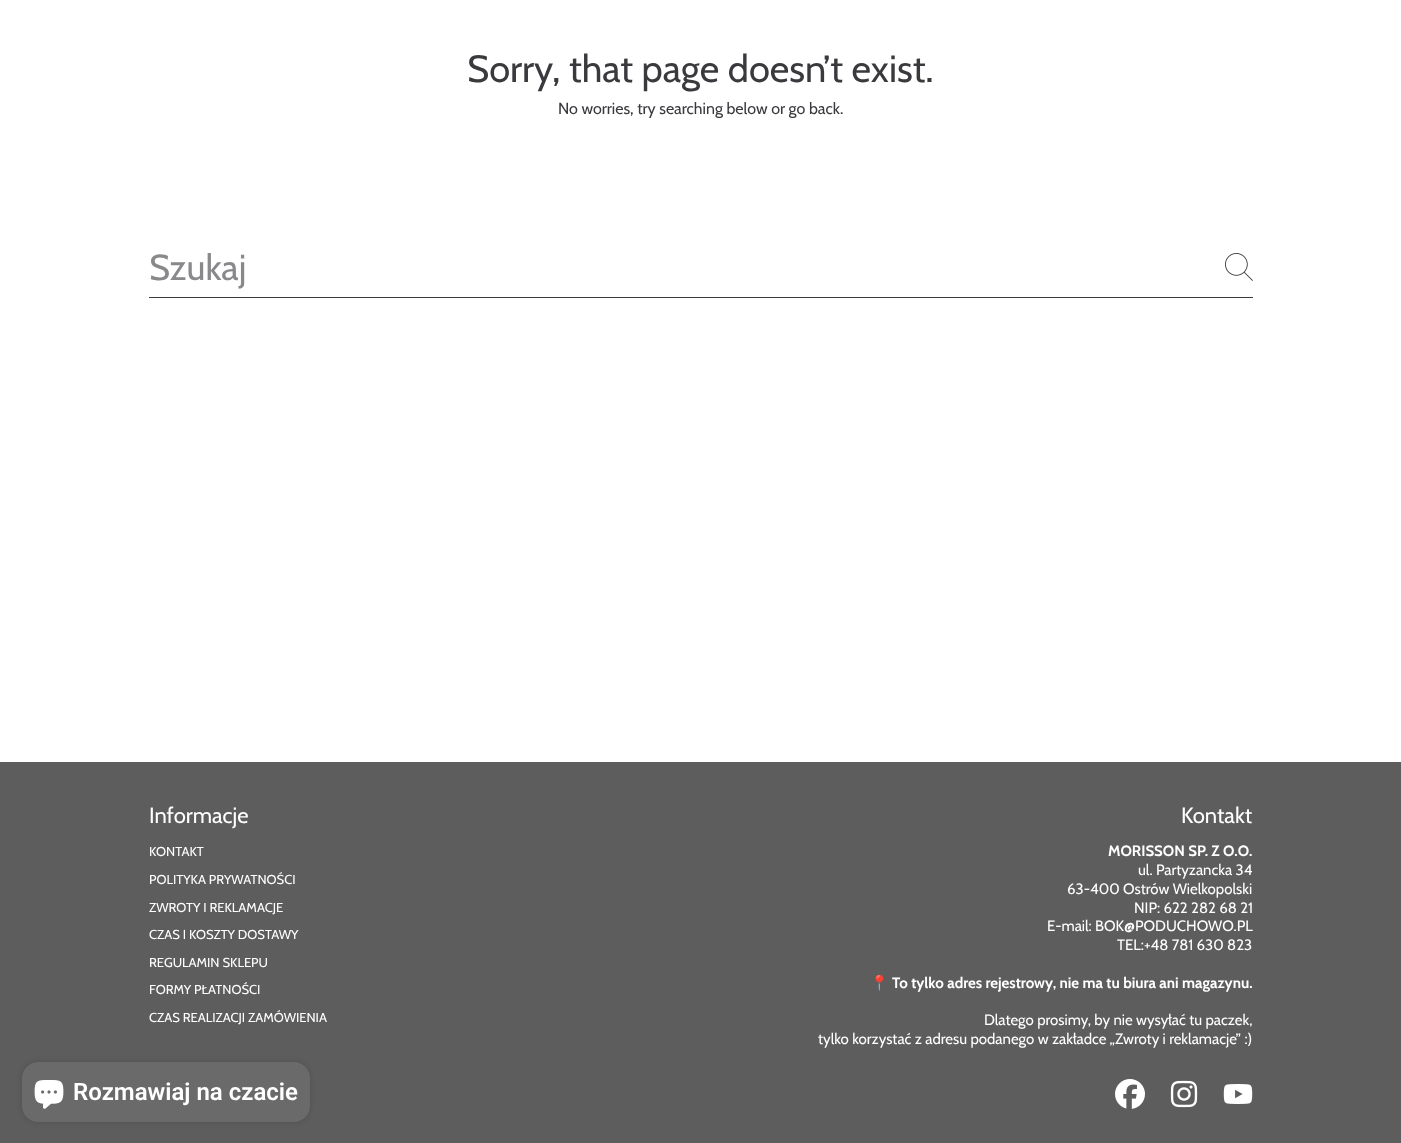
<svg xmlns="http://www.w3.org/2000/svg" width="1401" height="1143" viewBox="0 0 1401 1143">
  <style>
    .t1 { font: 38px Cabin; fill: #3a3a3e; }
    .t2 { font: 16px Cabin; fill: #3a3a3e; }
    .t3 { font: 36px Cabin; fill: #89898b; }
    .t4 { font: 22px Cabin; fill: #fff; }
    .t5 { font: 13px Cabin; fill: #fff; }
    .t6 { font: bold 15px Cabin; fill: #fff; }
    .t7 { font: 15px Cabin; fill: #fff; }
    .t8 { font: 15px Noto Color Emoji; fill: #fff; }
    .t9 { font: 600 24px Roboto; fill: #fff; }
  </style>
  <rect width="100%" height="100%" fill="#fff"/>
  <text x="467" y="82" class="t1">Sorry, that page doesn’t exist.</text>
  <text x="558" y="114" class="t2">No worries, try searching below or go back.</text>
  <rect x="149" y="297" width="1104" height="1" fill="#3a3a3e"/>
  <text x="149" y="280" class="t3">Szukaj</text>
  <image x="1225" y="253" width="28" height="28" href="images/1.png"/>
  <rect x="0" y="762" width="1401" height="381" fill="#5d5d5e"/>
  <text x="149" y="823" class="t4">Informacje</text>
  <text x="149" y="856" class="t5">KONTAKT</text>
  <text x="149" y="884" class="t5">POLITYKA PRYWATNOŚCI</text>
  <text x="149" y="912" class="t5">ZWROTY I REKLAMACJE</text>
  <text x="149" y="939" class="t5">CZAS I KOSZTY DOSTAWY</text>
  <text x="149" y="967" class="t5">REGULAMIN SKLEPU</text>
  <text x="149" y="994" class="t5">FORMY PŁATNOŚCI</text>
  <text x="149" y="1022" class="t5">CZAS REALIZACJI ZAMÓWIENIA</text>
  <text x="1181" y="823" class="t4">Kontakt</text>
  <text x="1108" y="856" class="t6">MORISSON SP. Z O.O.</text>
  <text x="1138" y="875" class="t7">ul. Partyzancka 34</text>
  <text x="1067" y="894" class="t7">63-400 Ostrów Wielkopolski</text>
  <text x="1134" y="913" class="t7">NIP: 622 282 68 21</text>
  <text x="1047" y="931" class="t7">E-mail: BOK@PODUCHOWO.PL</text>
  <text x="1117" y="950" class="t7">TEL:+48 781 630 823</text>
  <text x="870" y="988" class="t8">📍</text>
  <text x="892" y="988" class="t6">To tylko adres rejestrowy, nie ma tu biura ani magazynu.</text>
  <text x="984" y="1025" class="t7">Dlatego prosimy, by nie wysyłać tu paczek,</text>
  <text x="818" y="1044" class="t7">tylko korzystać z adresu podanego w zakładce „Zwroty i reklamacje” :)</text>
  <image x="1115" y="1079" width="30" height="30" href="images/2.png"/>
  <image x="1170" y="1080" width="28" height="28" href="images/3.png"/>
  <image x="1223" y="1084" width="30" height="20" href="images/4.png"/>
  <rect x="22" y="1062" width="288" height="60" rx="16" fill="#00000026" filter="blur(2.5px)"/>
  <rect x="22" y="1062" width="288" height="60" rx="16" fill="#6a6a6a"/>
  <image x="34" y="1080" width="30" height="29" href="images/5.png"/>
  <text x="73" y="1100" class="t9">Rozmawiaj na czacie</text>
</svg>
